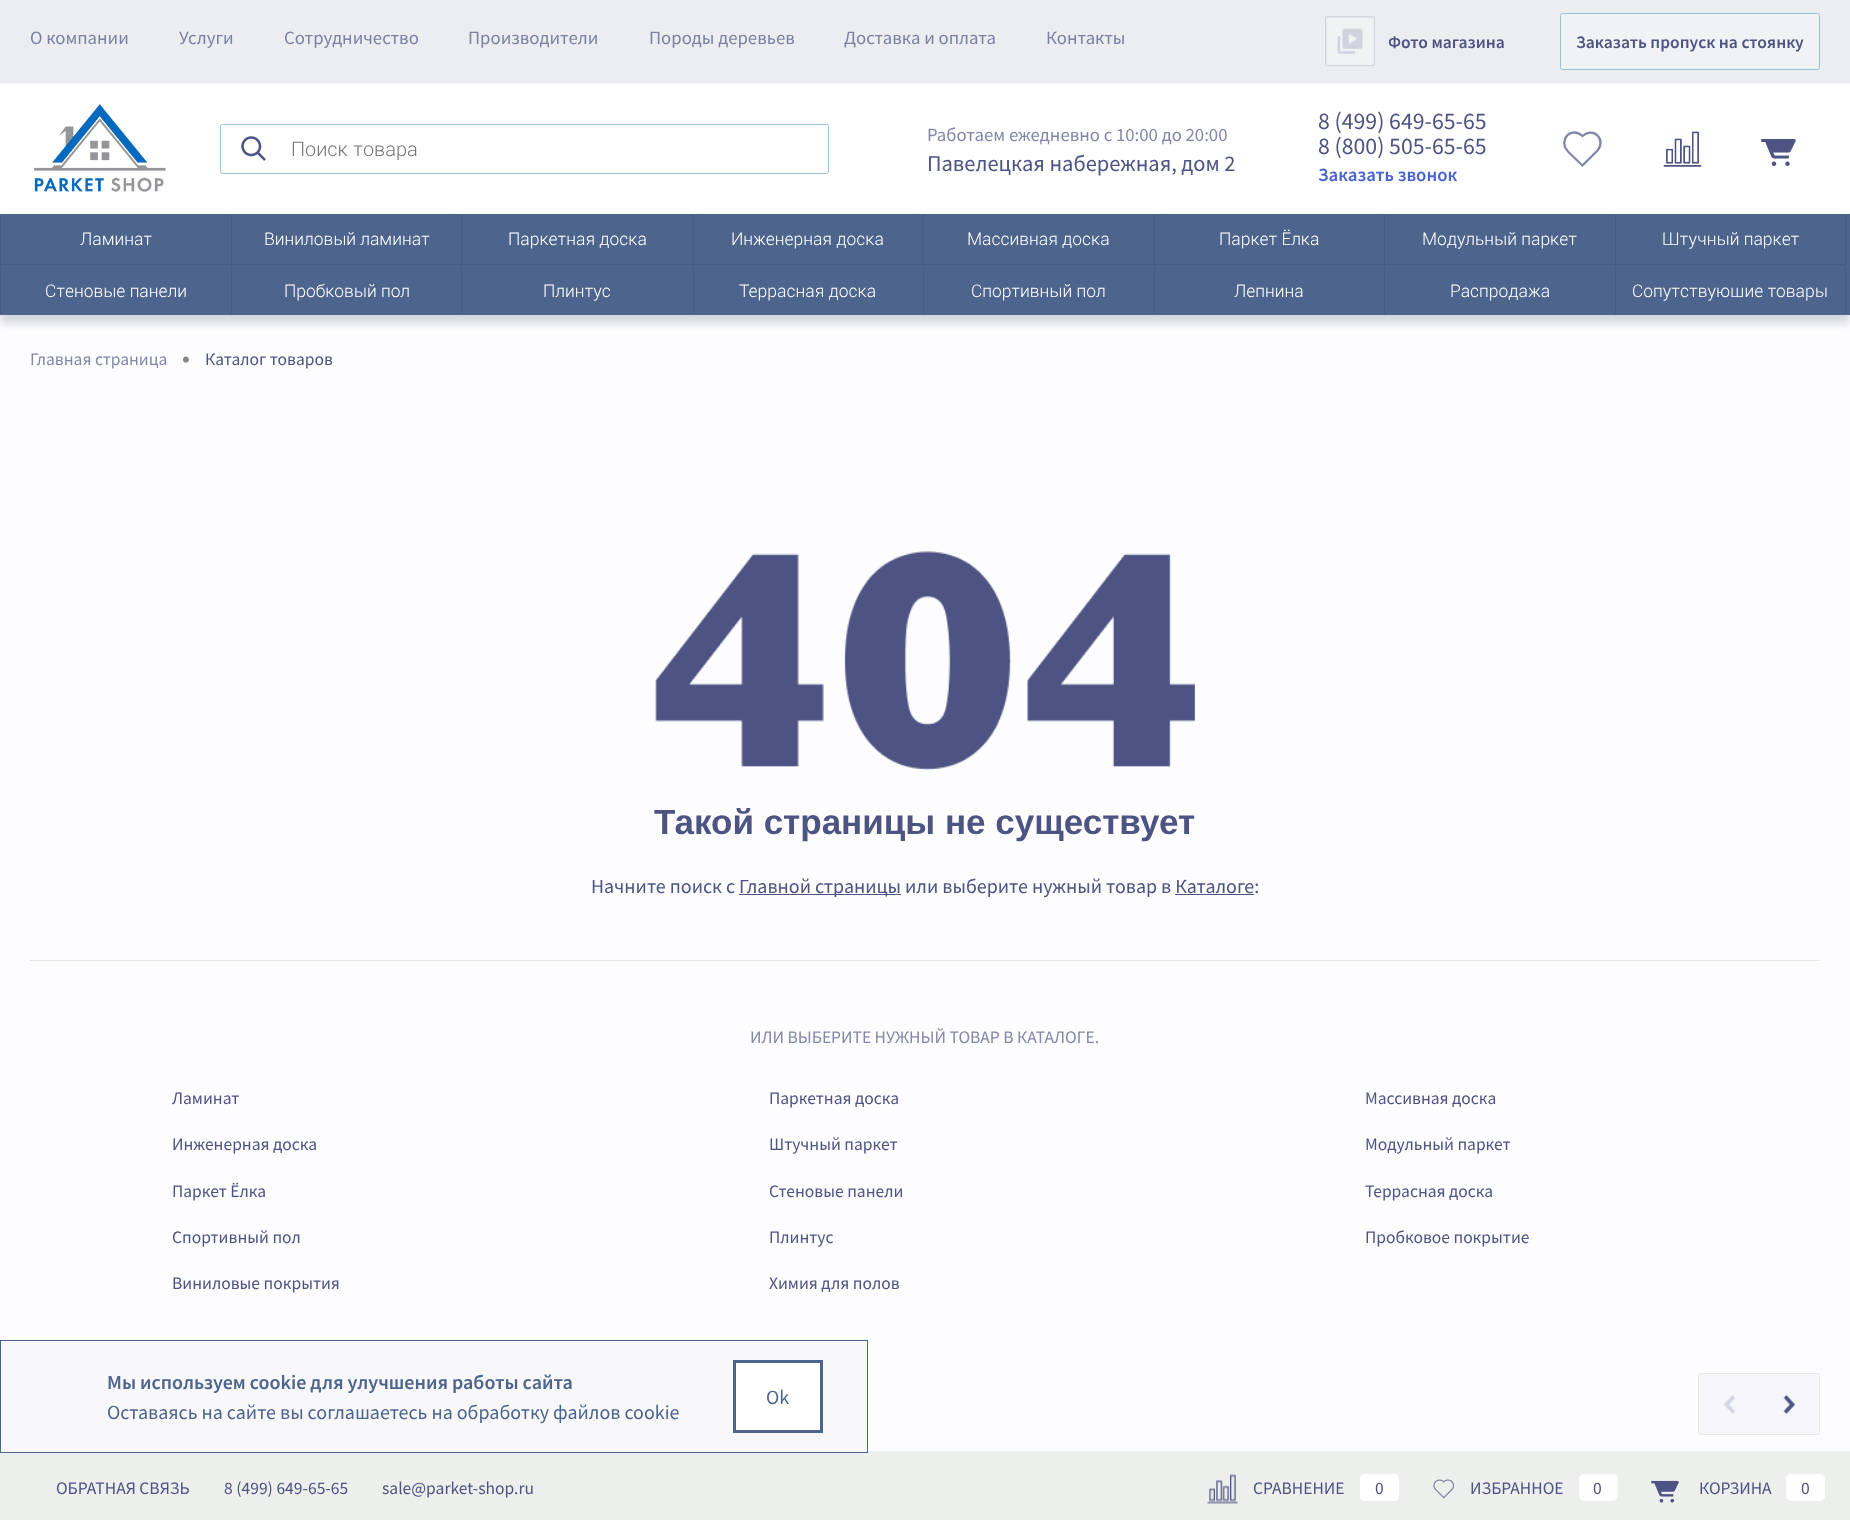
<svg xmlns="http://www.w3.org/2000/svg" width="1850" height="1520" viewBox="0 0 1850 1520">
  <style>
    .t1 { font: 18.75px Source Sans Pro; fill: #7c81a3; }
    .t2 { font: 600 17.5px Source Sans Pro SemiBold; fill: #4d5382; }
    .t3 { font: 300 20px Roboto; fill: #757575; }
    .t4 { font: 18.75px Source Sans Pro; fill: #8287a8; }
    .t5 { font: 22.5px Source Sans Pro; fill: #4d5382; }
    .t6 { font: 23.75px Source Sans Pro; fill: #4d5382; }
    .t7 { font: 600 18.75px Source Sans Pro SemiBold; fill: #4862cf; }
    .t8 { font: 300 17.5px Roboto; fill: #fff; }
    .t9 { font: 17.5px Source Sans Pro; fill: #8287a8; }
    .t10 { font: 22.5px Liberation Sans; fill: #888; }
    .t11 { font: 17.5px Source Sans Pro; fill: #4d5382; }
    .t12 { font: bold 35px Liberation Sans; fill: #4d5382; }
    .t13 { font: 20px Source Sans Pro; fill: #4d5382; }
    .t14 { font: 600 20px Source Sans Pro SemiBold; fill: #4d648d; }
    .t15 { font: 20px Source Sans Pro; fill: #4d648d; }
  </style>
  <rect width="100%" height="100%" fill="#fdfcff"/>
  <rect x="0" y="0" width="1850" height="83" fill="#ebedf0"/>
  <rect x="0" y="83" width="1850" height="1" fill="#f6f6f6"/>
  <text x="30" y="44" class="t1">О компании</text>
  <text x="179" y="44" class="t1">Услуги</text>
  <text x="284" y="44" class="t1">Сотрудничество</text>
  <text x="468" y="44" class="t1">Производители</text>
  <text x="649" y="44" class="t1">Породы деревьев</text>
  <text x="844" y="44" class="t1">Доставка и оплата</text>
  <text x="1046" y="44" class="t1">Контакты</text>
  <image x="1325" y="16" width="50" height="51" href="images/1.png"/>
  <text x="1388" y="48" class="t2">Фото магазина</text>
  <rect x="1560.5" y="13.5" width="259" height="56" rx="2" fill="#f1f2f5" stroke="#99c1db"/>
  <text x="1576" y="48" class="t2">Заказать пропуск на стоянку</text>
  <rect x="0" y="84" width="1850" height="130" fill="#fff"/>
  <image x="33" y="104" width="133" height="88" href="images/2.png"/>
  <rect x="220.5" y="124.5" width="608" height="49" rx="2" fill="none" stroke="#99c1db"/>
  <image x="241" y="136" width="25" height="25" href="images/3.png"/>
  <text x="291" y="156" class="t3">Поиск товара</text>
  <text x="927" y="141" class="t4">Работаем ежедневно с 10:00 до 20:00</text>
  <text x="927" y="171" class="t5">Павелецкая набережная, дом 2</text>
  <text x="1318" y="129" class="t6">8 (499) 649-65-65</text>
  <text x="1318" y="154" class="t6">8 (800) 505-65-65</text>
  <text x="1318" y="181" class="t7">Заказать звонок</text>
  <path d="M1597.5 135.5C1601.5 139.5 1601.5 146 1597.5 150.5L1582.5 165.5L1572 155.5C1569.5 153 1566 150 1565 147C1564 144.5 1564 141.5 1565 139C1568 131.5 1576.5 130.5 1582.5 136C1587 132 1593 131 1597.5 135.5Z" fill="none" stroke="#8287a8" stroke-width="2.3"/>
  <image x="1663" y="131" width="39" height="36" href="images/4.png"/>
  <image x="1761" y="139" width="35" height="27" href="images/5.png"/>
  <rect x="0" y="221" width="1850" height="102" fill="#223c5033" filter="blur(5px)"/>
  <rect x="0" y="214" width="1850" height="101" fill="#4d648d"/>
  <path d="M231 265H0L1 264H231Z" fill="#485d84"/>
  <path d="M0 265V214H1V264Z" fill="#1f22321a"/>
  <text x="80" y="245" class="t8">Ламинат</text>
  <path d="M461 265H231L232 264H461Z" fill="#485d84"/>
  <path d="M231 265V214H232V264Z" fill="#1f22321a"/>
  <text x="264" y="245" class="t8">Виниловый ламинат</text>
  <path d="M692 265H461L462 264H692Z" fill="#485d84"/>
  <path d="M461 265V214H462V264Z" fill="#1f22321a"/>
  <text x="508" y="245" class="t8">Паркетная доска</text>
  <path d="M922 265H692L694 264H922Z" fill="#485d84"/>
  <path d="M692 265V214H694V264Z" fill="#485d84"/>
  <text x="731" y="245" class="t8">Инженерная доска</text>
  <path d="M1154 265H922L924 264H1154Z" fill="#485d84"/>
  <path d="M922 265V214H924V264Z" fill="#485d84"/>
  <text x="967" y="245" class="t8">Массивная доска</text>
  <path d="M1384 265H1154L1155 264H1384Z" fill="#485d84"/>
  <path d="M1154 265V214H1155V264Z" fill="#1f22321a"/>
  <text x="1219" y="245" class="t8">Паркет Ёлка</text>
  <path d="M1615 265H1384L1385 264H1615Z" fill="#485d84"/>
  <path d="M1384 265V214H1385V264Z" fill="#1f22321a"/>
  <text x="1422" y="245" class="t8">Модульный паркет</text>
  <path d="M1846 214V265L1845 264V214Z" fill="#485d84"/>
  <path d="M1846 265H1615L1616 264H1845Z" fill="#1f22321a"/>
  <path d="M1615 265V214H1616V264Z" fill="#1f22321a"/>
  <text x="1662" y="245" class="t8">Штучный паркет</text>
  <rect x="0" y="265" width="1" height="50" fill="#485d84"/>
  <text x="45" y="297" class="t8">Стеновые панели</text>
  <rect x="231" y="265" width="1" height="50" fill="#485d84"/>
  <text x="284" y="297" class="t8">Пробковый пол</text>
  <rect x="461" y="265" width="1" height="50" fill="#485d84"/>
  <text x="543" y="297" class="t8">Плинтус</text>
  <rect x="693" y="265" width="1" height="50" fill="#485d84"/>
  <text x="739" y="297" class="t8">Террасная доска</text>
  <rect x="923" y="265" width="1" height="50" fill="#485d84"/>
  <text x="971" y="297" class="t8">Спортивный пол</text>
  <rect x="1154" y="265" width="1" height="50" fill="#485d84"/>
  <text x="1234" y="297" class="t8">Лепнина</text>
  <rect x="1384" y="265" width="1" height="50" fill="#485d84"/>
  <text x="1450" y="297" class="t8">Распродажа</text>
  <rect x="1845" y="265" width="1" height="50" fill="#485d84"/>
  <rect x="1615" y="265" width="1" height="50" fill="#485d84"/>
  <text x="1632" y="297" class="t8">Сопутствующие товары</text>
  <text x="30" y="365" class="t9">Главная страница</text>
  <text x="182" y="367" class="t10">•</text>
  <text x="205" y="365" class="t11">Каталог товаров</text>
  <image x="655" y="551" width="540" height="219" href="images/6.png"/>
  <text x="654" y="834" class="t12">Такой страницы не существует</text>
  <text x="591" y="893" class="t13">Начните поиск с</text>
  <rect x="739" y="894" width="162" height="1" fill="#4d5382"/>
  <text x="739" y="893" class="t13">Главной страницы или выберите нужный товар в Каталоге:</text>
  <rect x="1175" y="894" width="79" height="1" fill="#4d5382"/>
  <rect x="30" y="960" width="1790" height="1" fill="#e5e5e5"/>
  <text x="750" y="1043" class="t9">ИЛИ ВЫБЕРИТЕ НУЖНЫЙ ТОВАР В КАТАЛОГЕ.</text>
  <text x="172" y="1104" class="t11">Ламинат</text>
  <text x="769" y="1104" class="t11">Паркетная доска</text>
  <text x="1365" y="1104" class="t11">Массивная доска</text>
  <text x="172" y="1150" class="t11">Инженерная доска</text>
  <text x="769" y="1150" class="t11">Штучный паркет</text>
  <text x="1365" y="1150" class="t11">Модульный паркет</text>
  <text x="172" y="1197" class="t11">Паркет Ёлка</text>
  <text x="769" y="1197" class="t11">Стеновые панели</text>
  <text x="1365" y="1197" class="t11">Террасная доска</text>
  <text x="172" y="1243" class="t11">Спортивный пол</text>
  <text x="769" y="1243" class="t11">Плинтус</text>
  <text x="1365" y="1243" class="t11">Пробковое покрытие</text>
  <text x="172" y="1289" class="t11">Виниловые покрытия</text>
  <text x="769" y="1289" class="t11">Химия для полов</text>
  <rect x="1698.5" y="1373.5" width="121" height="61" rx="2" fill="none" stroke="#e7e6eb"/>
  <path d="M1701.5 1374H1759V1434H1701.5C1700 1434 1699 1433 1699 1431.5V1376.5C1699 1375 1700 1374 1701.5 1374Z" fill="#f6f5fa"/>
  <image x="1723" y="1395" width="12" height="19" href="images/7.png"/>
  <path d="M1759 1374H1816.5C1818 1374 1819 1375 1819 1376.5V1431.5C1819 1433 1818 1434 1816.5 1434H1759Z" fill="#f6f5fa"/>
  <image x="1783" y="1394" width="12" height="20" href="images/8.png"/>
  <rect x="0" y="1451" width="1850" height="69" fill="#edefec"/>
  <text x="56" y="1494" class="t11">ОБРАТНАЯ СВЯЗЬ</text>
  <text x="224" y="1494" class="t11">8 (499) 649-65-65</text>
  <text x="382" y="1494" class="t11">sale@parket-shop.ru</text>
  <image x="1207" y="1474" width="31" height="30" href="images/9.png"/>
  <text x="1253" y="1494" class="t11">СРАВНЕНИЕ</text>
  <rect x="1360" y="1474" width="39" height="27" rx="5" fill="#fff"/>
  <text x="1375" y="1494" class="t11">0</text>
  <image x="1433" y="1479" width="22" height="20" href="images/10.png"/>
  <text x="1470" y="1494" class="t11">ИЗБРАННОЕ</text>
  <rect x="1579" y="1474" width="39" height="27" rx="5" fill="#fff"/>
  <text x="1593" y="1494" class="t11">0</text>
  <image x="1651" y="1480" width="28" height="23" href="images/11.png"/>
  <text x="1699" y="1494" class="t11">КОРЗИНА</text>
  <rect x="1786" y="1474" width="39" height="27" rx="5" fill="#fff"/>
  <text x="1801" y="1494" class="t11">0</text>
  <rect x="0.5" y="1340.5" width="867" height="112" fill="#f8f8fa" stroke="#4d648d"/>
  <text x="107" y="1389" class="t14">Мы используем cookie для улучшения работы сайта</text>
  <text x="107" y="1419" class="t15">Оставаясь на сайте вы соглашаетесь на обработку файлов cookie</text>
  <rect x="734.5" y="1361.5" width="87" height="70" fill="#fff" stroke="#4d648d" stroke-width="3"/>
  <text x="766" y="1404" class="t15">Ok</text>
</svg>
